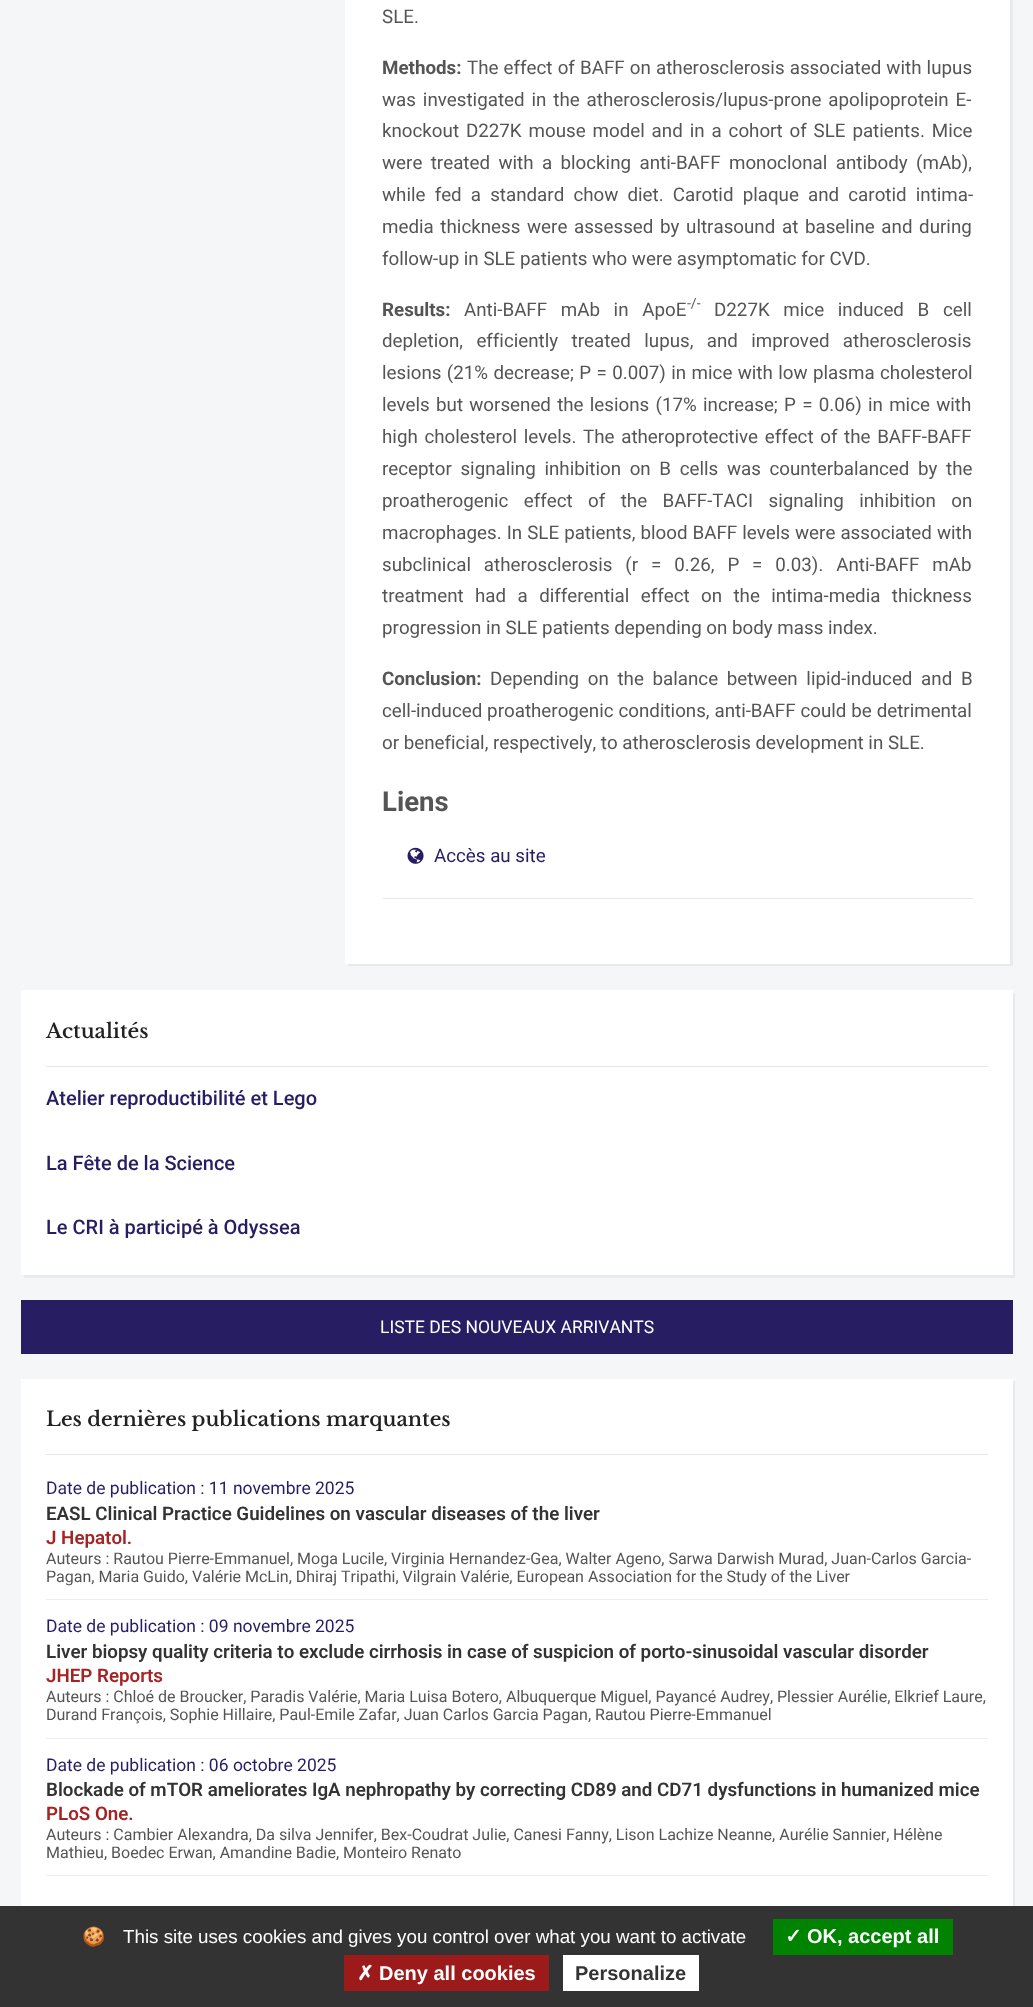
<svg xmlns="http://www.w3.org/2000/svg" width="1033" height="2007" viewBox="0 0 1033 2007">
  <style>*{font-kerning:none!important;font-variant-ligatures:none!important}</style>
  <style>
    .t1 { font: 18.75px Roboto; fill: #555; }
    .t2 { font: bold 18.75px Roboto; fill: #555; }
    .t3 { font: 14px Roboto; fill: #555; }
    .t4 { font: bold 27.5px Roboto; fill: #555; }
    .t5 { font: 18.75px Roboto; fill: #271d63; }
    .t6 { font: 600 20px Libre Baskerville; fill: #222; }
    .t7 { font: 500 20px Roboto; fill: #271d63; }
    .t8 { font: 17.5px Roboto; fill: #fff; }
    .t9 { font: 17.5px Roboto; fill: #271d63; }
    .t10 { font: 600 18.75px Roboto; fill: #333; }
    .t11 { font: 600 18.75px Roboto; fill: #a42424; }
    .t12 { font: 16px Roboto; fill: #555; }
    .t13 { font: 18.75px Noto Color Emoji; fill: #fff; }
    .t14 { font: 18.75px Liberation Sans; fill: #fff; }
    .t15 { font: bold 20px DejaVu Sans; fill: #fff; }
    .t16 { font: bold 20px Liberation Sans; fill: #fff; }
    .t17 { font: bold 20px Liberation Sans; fill: #333; }
  </style>
  <rect width="100%" height="100%" fill="#f4f6f8"/>
  <path d="M348 964V966H1013V-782H1010V964Z" fill="#e8eaec"/>
  <rect x="345" y="0" width="665" height="964" fill="#fff"/>
  <text x="382" y="23" class="t1">SLE.</text>
  <text x="382" y="74" class="t2">Methods:</text>
  <text x="467" y="74" word-spacing="0.5" class="t1">The effect of BAFF on atherosclerosis associated with lupus</text>
  <text x="382" y="106" word-spacing="2.25" class="t1">was investigated in the atherosclerosis/lupus-prone apolipoprotein E-</text>
  <text x="382" y="137" word-spacing="2.25" class="t1">knockout D227K mouse model and in a cohort of SLE patients. Mice</text>
  <text x="382" y="169" word-spacing="3.75" class="t1">were treated with a blocking anti-BAFF monoclonal antibody (mAb),</text>
  <text x="382" y="201" word-spacing="4.5" class="t1">while fed a standard chow diet. Carotid plaque and carotid intima-</text>
  <text x="382" y="233" word-spacing="2" class="t1">media thickness were assessed by ultrasound at baseline and during</text>
  <text x="382" y="265" class="t1">follow-up in SLE patients who were asymptomatic for CVD.</text>
  <text x="382" y="316" class="t2">Results:</text>
  <text x="464" y="316" word-spacing="9" class="t1">Anti-BAFF mAb in ApoE</text>
  <text x="687" y="308" class="t3">-/-</text>
  <text x="714" y="316" word-spacing="9" class="t1">D227K mice induced B cell</text>
  <text x="382" y="347" word-spacing="8.75" class="t1">depletion, efficiently treated lupus, and improved atherosclerosis</text>
  <text x="382" y="379" word-spacing="0.75" class="t1">lesions (21% decrease; P = 0.007) in mice with low plasma cholesterol</text>
  <text x="382" y="411" word-spacing="1.6" class="t1">levels but worsened the lesions (17% increase; P = 0.06) in mice with</text>
  <text x="382" y="443" word-spacing="2" class="t1">high cholesterol levels. The atheroprotective effect of the BAFF-BAFF</text>
  <text x="382" y="475" word-spacing="4" class="t1">receptor signaling inhibition on B cells was counterbalanced by the</text>
  <text x="382" y="507" word-spacing="10.75" class="t1">proatherogenic effect of the BAFF-TACI signaling inhibition on</text>
  <text x="382" y="539" word-spacing="0.4" class="t1">macrophages. In SLE patients, blood BAFF levels were associated with</text>
  <text x="382" y="571" word-spacing="8.25" class="t1">subclinical atherosclerosis (r = 0.26, P = 0.03). Anti-BAFF mAb</text>
  <text x="382" y="602" word-spacing="6.75" class="t1">treatment had a differential effect on the intima-media thickness</text>
  <text x="382" y="634" class="t1">progression in SLE patients depending on body mass index.</text>
  <text x="382" y="685" class="t2">Conclusion:</text>
  <text x="490" y="685" word-spacing="4" class="t1">Depending on the balance between lipid-induced and B</text>
  <text x="382" y="717" word-spacing="0.25" class="t1">cell-induced proatherogenic conditions, anti-BAFF could be detrimental</text>
  <text x="382" y="749" class="t1">or beneficial, respectively, to atherosclerosis development in SLE.</text>
  <text x="382" y="811" class="t4">Liens</text>
  <image x="407" y="847" width="17" height="17" href="images/1.png"/>
  <text x="434" y="862" class="t5">Accès au site</text>
  <rect x="383" y="898" width="590" height="1" fill="#e7e7e7"/>
  <path d="M24 1275V1278H1015V993H1012V1275Z" fill="#e8eaec"/>
  <rect x="21" y="990" width="992" height="285" fill="#fff"/>
  <rect x="46" y="1066" width="942" height="1" fill="#e6e6e6"/>
  <text x="46" y="1038" class="t6">Actualités</text>
  <text x="46" y="1105" class="t7">Atelier reproductibilité et Lego</text>
  <text x="46" y="1170" class="t7">La Fête de la Science</text>
  <text x="46" y="1234" class="t7">Le CRI à participé à Odyssea</text>
  <rect x="21" y="1300" width="992" height="54" fill="#271d63"/>
  <text x="380" y="1333" class="t8">LISTE DES NOUVEAUX ARRIVANTS</text>
  <path d="M24 1914V1916H1015V1381H1012V1914Z" fill="#e8eaec"/>
  <rect x="21" y="1379" width="992" height="527" fill="#fff"/>
  <rect x="46" y="1454" width="942" height="1" fill="#e6e6e6"/>
  <text x="46" y="1426" class="t6">Les dernières publications marquantes</text>
  <rect x="46" y="1599" width="942" height="1" fill="#eee"/>
  <text x="46" y="1494" class="t9">Date de publication : 11 novembre 2025</text>
  <text x="46" y="1520" class="t10">EASL Clinical Practice Guidelines on vascular diseases of the liver</text>
  <text x="46" y="1544" class="t11">J Hepatol.</text>
  <text x="46" y="1564" class="t12">Auteurs : Rautou Pierre-Emmanuel, Moga Lucile, Virginia Hernandez-Gea, Walter Ageno, Sarwa Darwish Murad, Juan-Carlos Garcia-</text>
  <text x="46" y="1582" class="t12">Pagan, Maria Guido, Valérie McLin, Dhiraj Tripathi, Vilgrain Valérie, European Association for the Study of the Liver</text>
  <rect x="46" y="1738" width="942" height="1" fill="#eee"/>
  <text x="46" y="1632" class="t9">Date de publication : 09 novembre 2025</text>
  <text x="46" y="1658" class="t10">Liver biopsy quality criteria to exclude cirrhosis in case of suspicion of porto-sinusoidal vascular disorder</text>
  <text x="46" y="1682" class="t11">JHEP Reports</text>
  <text x="46" y="1702" class="t12">Auteurs : Chloé de Broucker, Paradis Valérie, Maria Luisa Botero, Albuquerque Miguel, Payancé Audrey,</text>
  <text x="777" y="1702" class="t12">Plessier Aurélie, Elkrief Laure,</text>
  <text x="46" y="1720" class="t12">Durand François, Sophie Hillaire, Paul-Emile Zafar, Juan Carlos Garcia Pagan, Rautou Pierre-Emmanuel</text>
  <rect x="46" y="1875" width="942" height="1" fill="#eee"/>
  <text x="46" y="1771" class="t9">Date de publication : 06 octobre 2025</text>
  <text x="46" y="1796" class="t10">Blockade of mTOR ameliorates IgA nephropathy by correcting CD89 and CD71 dysfunctions in humanized mice</text>
  <text x="46" y="1820" class="t11">PLoS One.</text>
  <text x="46" y="1840" class="t12">Auteurs : Cambier Alexandra, Da silva Jennifer, Bex-Coudrat Julie, Canesi Fanny, Lison Lachize Neanne, Aurélie Sannier,</text>
  <text x="893" y="1840" class="t12">Hélène</text>
  <text x="46" y="1858" class="t12">Mathieu, Boedec Erwan, Amandine Badie, Monteiro Renato</text>
  <rect x="0" y="1906" width="1033" height="101" fill="#333"/>
  <text x="82" y="1943" class="t13">🍪</text>
  <text x="123" y="1943" class="t14">This site uses cookies and gives you control over what you want to activate</text>
  <rect x="773" y="1919" width="180" height="36" fill="#008300"/>
  <text x="785" y="1943" class="t15">✓</text>
  <text x="807" y="1943" class="t16">OK, accept all</text>
  <rect x="344" y="1955" width="205" height="36" fill="#9c1a1a"/>
  <text x="357" y="1980" class="t15">✗</text>
  <text x="379" y="1980" class="t16">Deny all cookies</text>
  <rect x="563" y="1955" width="136" height="36" fill="#fff"/>
  <text x="575" y="1980" class="t17">Personalize</text>
</svg>
